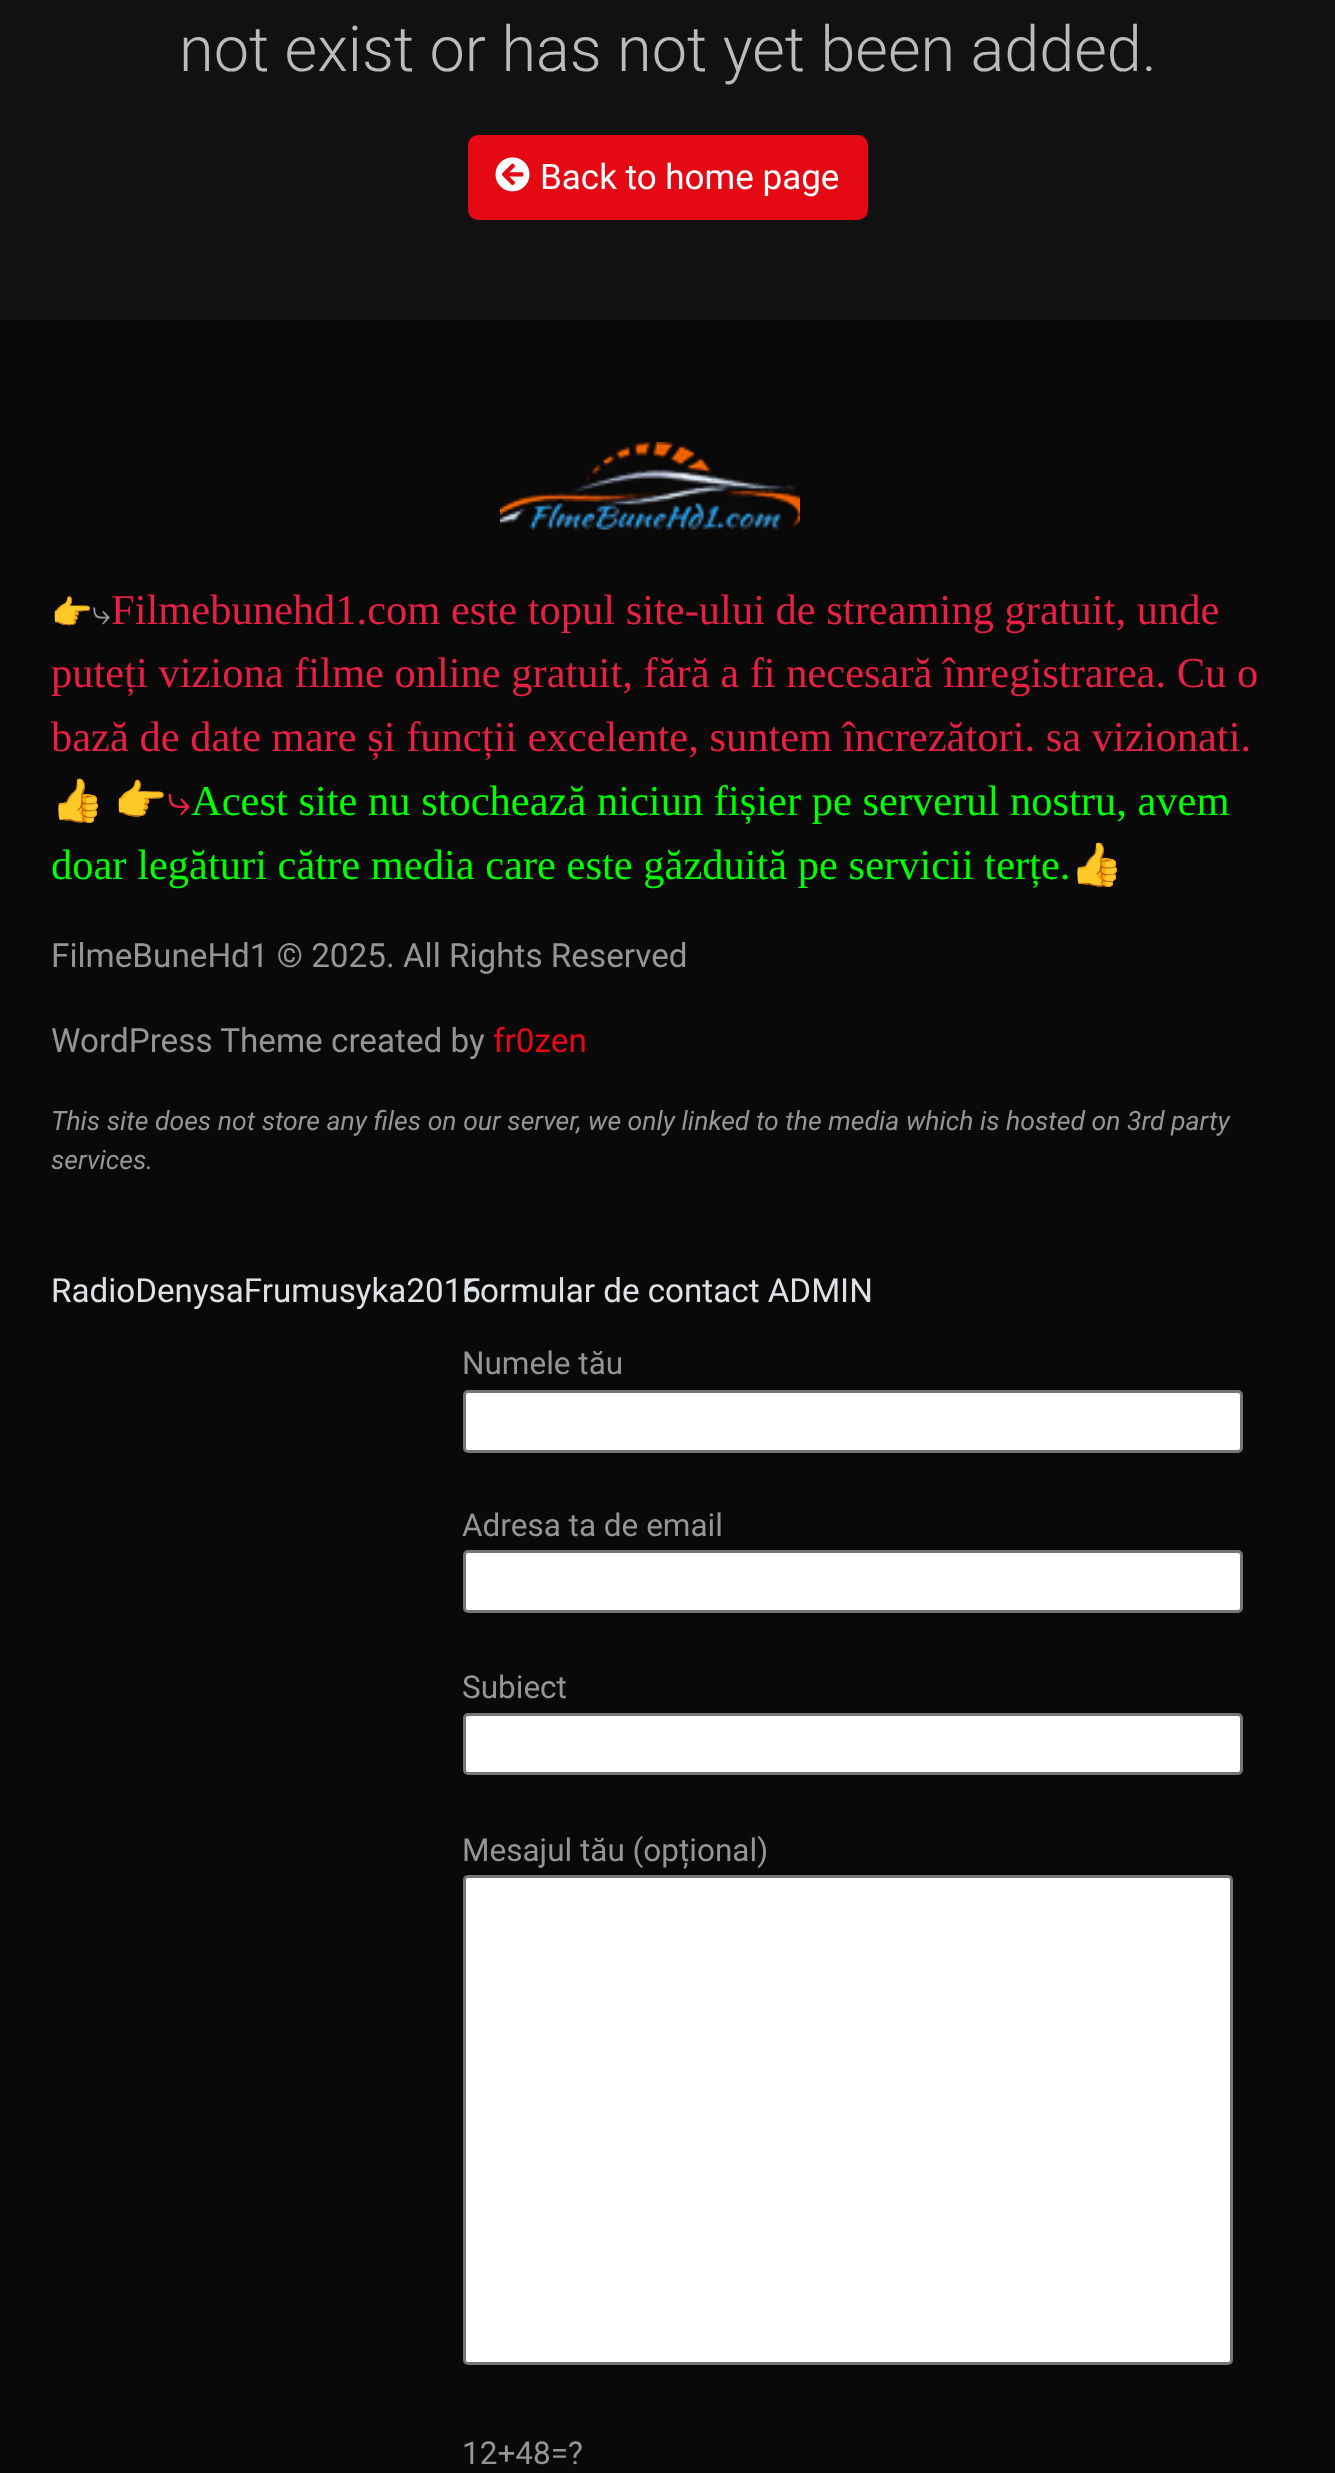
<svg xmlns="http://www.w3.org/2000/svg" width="1335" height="2473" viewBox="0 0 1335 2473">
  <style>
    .t1 { font: 300 63px Roboto; fill: #bbb; }
    .t2 { font: 35px Roboto; fill: #fff; }
    .t3 { font: 33.25px Noto Color Emoji; fill: #959595; }
    .t4 { font: 33.25px FreeSerif; fill: #959595; }
    .t5 { font: 42.5px Liberation Serif; fill: #e72044; }
    .t6 { font: 42.5px Noto Color Emoji; fill: #e72044; }
    .t7 { font: 42.5px FreeSerif; fill: #e72044; }
    .t8 { font: 42.5px Liberation Serif; fill: #0f0; }
    .t9 { font: 42.5px Noto Color Emoji; fill: #0f0; }
    .t10 { font: 33.25px Roboto; fill: #959595; }
    .t11 { font: 33.25px Roboto; fill: #e50914; }
    .t12 { font: italic 26.6px Roboto; fill: #959595; }
    .t13 { font: 33.2px Roboto; fill: #dee2e6; }
    .t14 { font: 31.5px Roboto; fill: #959595; }
  </style>
  <rect width="100%" height="100%" fill="#111"/>
  <text x="179" y="71" class="t1">not exist or has not yet been added.</text>
  <rect x="469.5" y="136.5" width="397" height="82" rx="8.5" fill="#e50914" stroke="#e50914" stroke-width="3"/>
  <image x="495" y="157" width="35" height="35" href="images/1.png"/>
  <text x="540" y="189" class="t2">Back to home page</text>
  <rect x="0" y="320" width="1335" height="2153" fill="#090909"/>
  <image x="500" y="442" width="300" height="88" href="images/2.png"/>
  <text x="51" y="624" class="t3">👉</text>
  <text x="92" y="624" class="t4">⤷</text>
  <text x="111" y="624" class="t5">Filmebunehd1.com este topul site-ului de streaming gratuit, unde</text>
  <text x="51" y="687" class="t5">puteți viziona filme online gratuit, fără a fi necesară înregistrarea. Cu o</text>
  <text x="51" y="751" class="t5">bază de date mare și funcții excelente, suntem încrezători. sa vizionati.</text>
  <text x="51" y="815" class="t6">👍</text>
  <text x="114" y="815" class="t6">👉</text>
  <text x="167" y="815" class="t7">⤷</text>
  <text x="191" y="815" class="t8">Acest site nu stochează niciun fișier pe serverul nostru, avem</text>
  <text x="51" y="879" class="t8">doar legături către media care este găzduită pe servicii terțe.</text>
  <text x="1070" y="879" class="t9">👍</text>
  <text x="51" y="967" class="t10">FilmeBuneHd1 © 2025. All Rights Reserved</text>
  <text x="51" y="1052" class="t10">WordPress Theme created by</text>
  <text x="493" y="1052" class="t11">fr0zen</text>
  <text x="51" y="1130" class="t12">This site does not store any files on our server, we only linked to the media which is hosted on 3rd party</text>
  <text x="51" y="1169" class="t12">services.</text>
  <text x="51" y="1302" class="t13">RadioDenysaFrumusyka2016</text>
  <text x="462" y="1302" class="t13">Formular de contact ADMIN</text>
  <text x="462" y="1374" class="t14">Numele tău</text>
  <rect x="464.5" y="1391.5" width="777" height="60" rx="3.5" fill="#fff" stroke="#767676" stroke-width="3"/>
  <text x="462" y="1536" class="t14">Adresa ta de email</text>
  <rect x="464.5" y="1551.5" width="777" height="60" rx="3.5" fill="#fff" stroke="#767676" stroke-width="3"/>
  <text x="462" y="1698" class="t14">Subiect</text>
  <rect x="464.5" y="1714.5" width="777" height="59" rx="3.5" fill="#fff" stroke="#767676" stroke-width="3"/>
  <text x="462" y="1861" class="t14">Mesajul tău (opțional)</text>
  <rect x="464.5" y="1876.5" width="767" height="487" rx="3.5" fill="#fff" stroke="#767676" stroke-width="3"/>
  <text x="462" y="2464" class="t14">12+48=?</text>
</svg>
